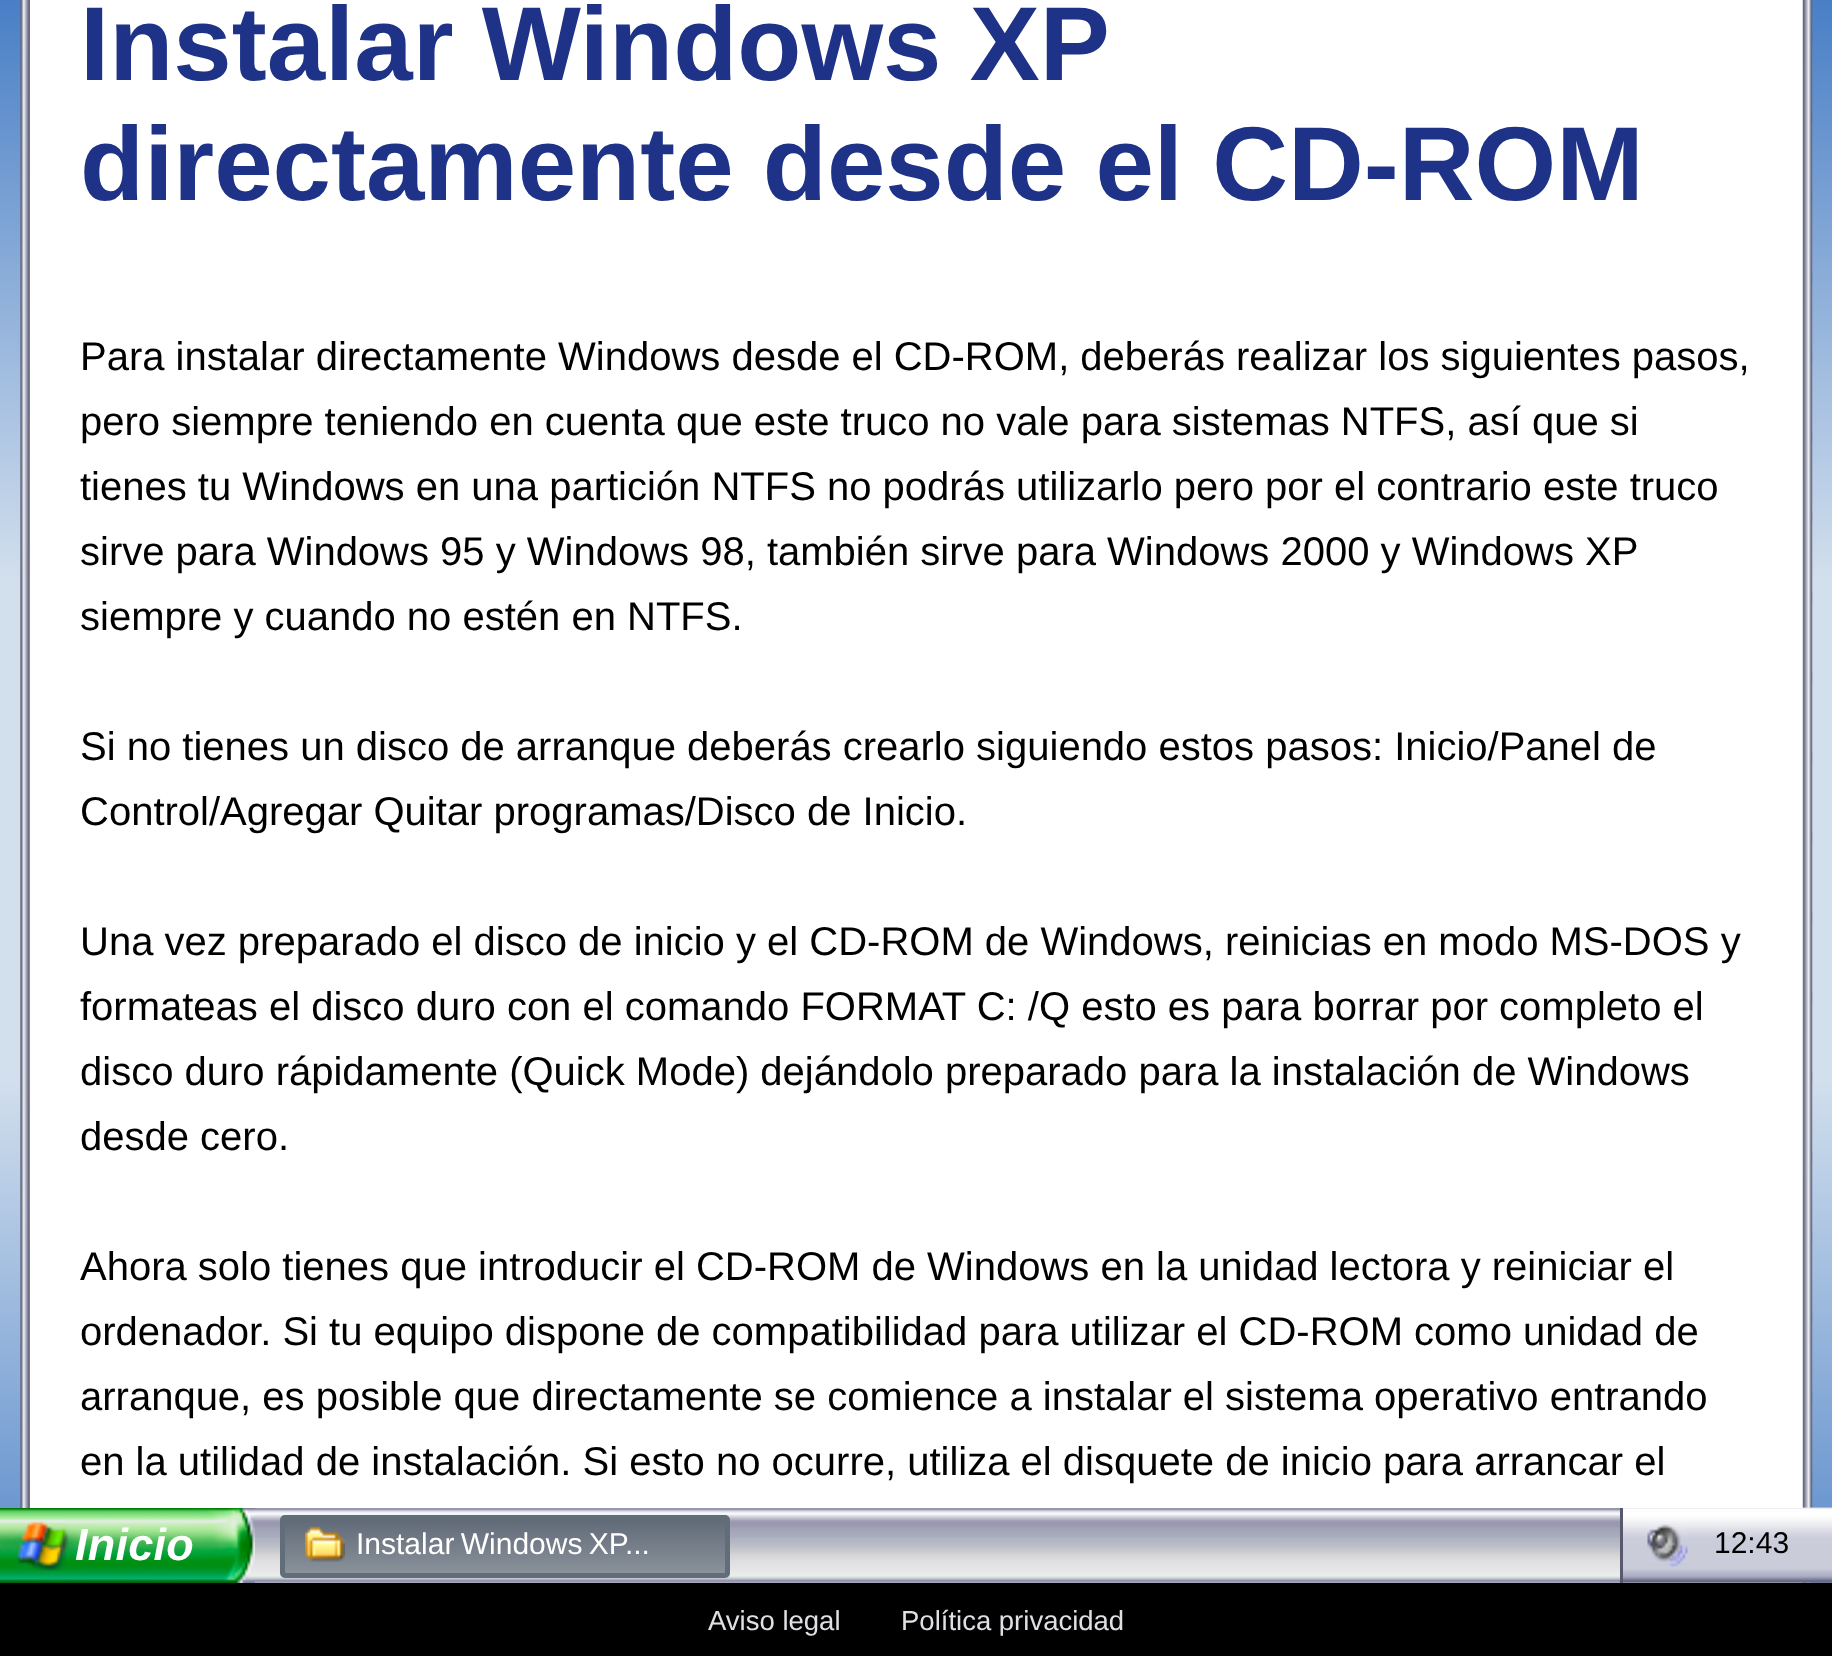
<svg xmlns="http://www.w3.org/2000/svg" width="1832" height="1656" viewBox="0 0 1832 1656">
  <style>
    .t1 { font: bold 105px Liberation Sans; fill: #1e3287; }
    .t2 { font: 40px Liberation Sans; fill: #000; }
    .t3 { font: italic bold 45px Liberation Sans; letter-spacing: 0.25px; fill: #fff; }
    .t4 { font: 30px Liberation Sans; fill: #fff; }
    .t5 { font: 30px Liberation Sans; fill: #000; }
    .t6 { font: 27.5px Liberation Sans; fill: #e0dfe3; }
  </style>
  <defs>
    <linearGradient id="g1" gradientUnits="userSpaceOnUse" x1="916" y1="0" x2="916" y2="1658"><stop offset="0" stop-color="#497fc6"/><stop offset="0.35" stop-color="#d2dfed"/><stop offset="0.65" stop-color="#d2dfed"/><stop offset="1" stop-color="#497fc6"/></linearGradient>
    <linearGradient id="g2" gradientUnits="userSpaceOnUse" x1="505" y1="1520" x2="505" y2="1573"><stop offset="0" stop-color="#616b78"/><stop offset="1" stop-color="#89919a"/></linearGradient>
  </defs>
  <rect width="100%" height="100%" fill="#fff"/>
  <rect x="0" y="0" width="1832" height="1583" fill="url(#g1)"/>
  <image x="20" y="0" width="10" height="1508" href="images/1.png"/>
  <rect x="30" y="0" width="1773" height="1583" fill="#fff"/>
  <text x="80" y="80" word-spacing="-1" class="t1">Instalar Windows XP</text>
  <text x="80" y="200" class="t1">directamente desde el CD-ROM</text>
  <text x="80" y="370" class="t2">Para instalar directamente Windows desde el CD-ROM, deberás realizar los siguientes pasos,</text>
  <text x="80" y="435" class="t2">pero siempre teniendo en cuenta que este truco no vale para sistemas NTFS, así que si</text>
  <text x="80" y="500" class="t2">tienes tu Windows en una partición NTFS no podrás utilizarlo pero por el contrario este truco</text>
  <text x="80" y="565" class="t2">sirve para Windows 95 y Windows 98, también sirve para Windows 2000 y Windows XP</text>
  <text x="80" y="630" class="t2">siempre y cuando no estén en NTFS.</text>
  <text x="80" y="760" class="t2">Si no tienes un disco de arranque deberás crearlo siguiendo estos pasos: Inicio/Panel de</text>
  <text x="80" y="825" class="t2">Control/Agregar Quitar programas/Disco de Inicio.</text>
  <text x="80" y="955" class="t2">Una vez preparado el disco de inicio y el CD-ROM de Windows, reinicias en modo MS-DOS y</text>
  <text x="80" y="1020" class="t2">formateas el disco duro con el comando FORMAT C: /Q esto es para borrar por completo el</text>
  <text x="80" y="1085" class="t2">disco duro rápidamente (Quick Mode) dejándolo preparado para la instalación de Windows</text>
  <text x="80" y="1150" class="t2">desde cero.</text>
  <text x="80" y="1280" class="t2">Ahora solo tienes que introducir el CD-ROM de Windows en la unidad lectora y reiniciar el</text>
  <text x="80" y="1345" class="t2">ordenador. Si tu equipo dispone de compatibilidad para utilizar el CD-ROM como unidad de</text>
  <text x="80" y="1410" class="t2">arranque, es posible que directamente se comience a instalar el sistema operativo entrando</text>
  <text x="80" y="1475" class="t2">en la utilidad de instalación. Si esto no ocurre, utiliza el disquete de inicio para arrancar el</text>
  <image x="1802" y="0" width="11" height="1583" href="images/2.png"/>
  <image x="255" y="1508" width="1577" height="75" href="images/3.png"/>
  <image x="0" y="1508" width="255" height="75" href="images/4.png"/>
  <text x="75" y="1560" class="t3">Inicio</text>
  <rect x="285" y="1520" width="440" height="53" fill="url(#g2)"/>
  <rect x="282.5" y="1517.5" width="445" height="58" rx="2.5" fill="none" stroke="#616d78" stroke-width="5"/>
  <image x="305" y="1526" width="40" height="36" href="images/5.png"/>
  <text x="356" y="1554" word-spacing="-2" class="t4">Instalar Windows XP...</text>
  <image x="1620" y="1507" width="212" height="76" href="images/6.png"/>
  <rect x="1620" y="1508" width="3" height="75" fill="#58596d"/>
  <image x="1647" y="1524" width="41" height="43" href="images/7.png"/>
  <text x="1714" y="1553" class="t5">12:43</text>
  <rect x="0" y="1583" width="1832" height="73" fill="#000"/>
  <text x="708" y="1630" class="t6">Aviso legal</text>
  <text x="901" y="1630" class="t6">Política privacidad</text>
</svg>
